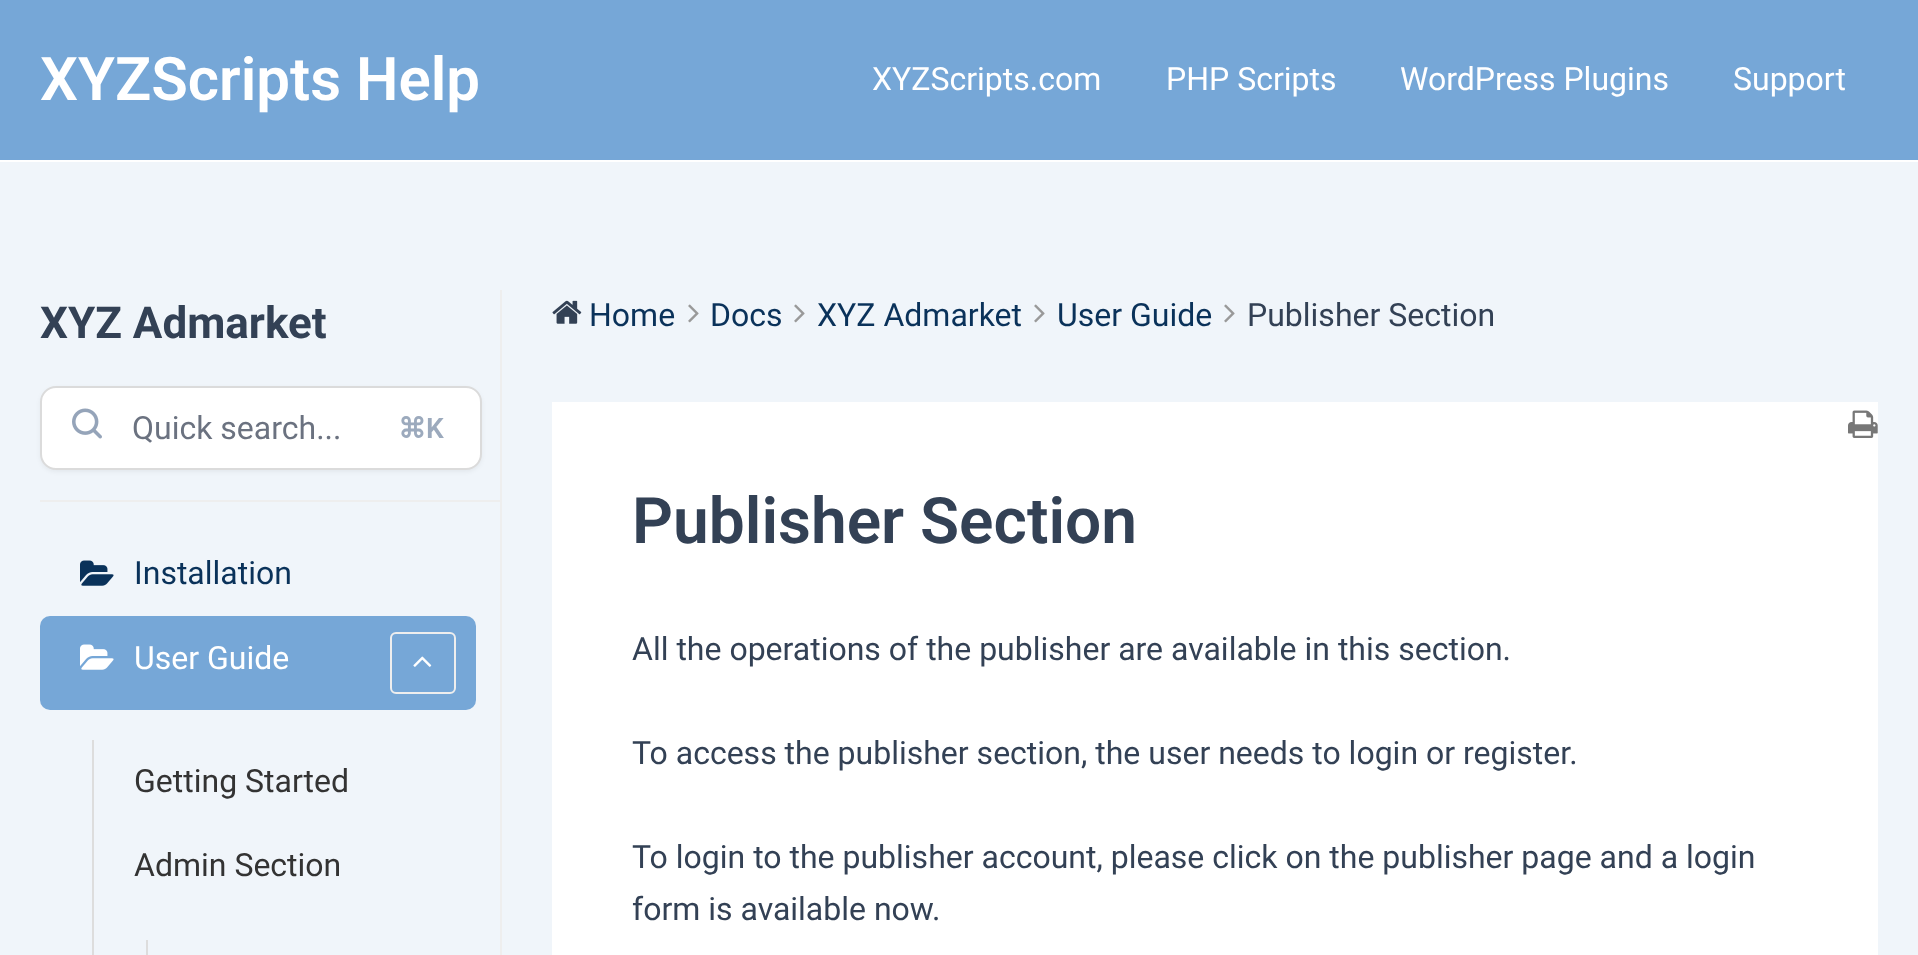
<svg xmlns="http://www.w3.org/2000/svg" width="1918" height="955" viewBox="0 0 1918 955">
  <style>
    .t1 { font: 600 60px Roboto; fill: #fff; }
    .t2 { font: 32px Roboto; fill: #fff; }
    .t3 { font: bold 44px Roboto; fill: #334155; }
    .t4 { font: 32px Roboto; fill: #6b7280; }
    .t5 { font: bold 28px DejaVu Sans; fill: #9caabd; }
    .t6 { font: 600 28px Roboto; fill: #9caabd; }
    .t7 { font: 32px Roboto; fill: #0a325a; }
    .t8 { font: 32px Roboto; fill: #333; }
    .t9 { font: 32px Roboto; fill: #334155; }
    .t10 { font: 600 64px Roboto; fill: #334155; }
  </style>
  <rect width="100%" height="100%" fill="#f0f5fa"/>
  <rect x="0" y="0" width="1918" height="160" fill="#76a7d7"/>
  <rect x="0" y="160" width="1918" height="2" fill="#fff"/>
  <text x="40" y="100" class="t1">XYZScripts Help</text>
  <text x="872" y="90" class="t2">XYZScripts.com</text>
  <text x="1166" y="90" class="t2">PHP Scripts</text>
  <text x="1400" y="90" class="t2">WordPress Plugins</text>
  <text x="1733" y="90" class="t2">Support</text>
  <text x="40" y="338" class="t3">XYZ Admarket</text>
  <rect x="40" y="500" width="460" height="2" fill="#eee"/>
  <rect x="40" y="388" width="442" height="84" rx="16" fill="#0000000d" filter="blur(2px)"/>
  <rect x="41" y="387" width="440" height="82" rx="15" fill="#fff" stroke="#dbdbdb" stroke-width="2"/>
  <image x="72" y="408" width="30" height="31" href="images/1.png"/>
  <text x="132" y="439" class="t4">Quick search...</text>
  <text x="398" y="438" class="t5">⌘</text>
  <text x="426" y="438" class="t6">K</text>
  <image x="80" y="560" width="34" height="26" href="images/2.png"/>
  <text x="134" y="584" class="t7">Installation</text>
  <rect x="40" y="616" width="436" height="94" rx="10" fill="#76a7d7"/>
  <image x="80" y="644" width="34" height="26" href="images/3.png"/>
  <text x="134" y="669" class="t2">User Guide</text>
  <rect x="391" y="633" width="64" height="60" rx="5" fill="none" stroke="#eee" stroke-width="2"/>
  <image x="413" y="656" width="19" height="11" href="images/4.png"/>
  <rect x="92" y="740" width="2" height="215" fill="#ddd"/>
  <text x="134" y="792" class="t8">Getting Started</text>
  <text x="134" y="876" class="t8">Admin Section</text>
  <rect x="146" y="940" width="2" height="15" fill="#ddd"/>
  <rect x="500" y="290" width="2" height="665" fill="#eee"/>
  <image x="552" y="300" width="30" height="24" href="images/5.png"/>
  <text x="589" y="326" class="t7">Home</text>
  <image x="688" y="304" width="11" height="19" href="images/6.png"/>
  <text x="710" y="326" class="t7">Docs</text>
  <image x="794" y="304" width="11" height="19" href="images/6.png"/>
  <text x="817" y="326" class="t7">XYZ Admarket</text>
  <image x="1034" y="304" width="11" height="19" href="images/6.png"/>
  <text x="1057" y="326" class="t7">User Guide</text>
  <image x="1224" y="304" width="11" height="19" href="images/6.png"/>
  <text x="1247" y="326" class="t9">Publisher Section</text>
  <rect x="552" y="402" width="1326" height="553" fill="#fff"/>
  <image x="1848" y="410" width="30" height="28" href="images/7.png"/>
  <text x="632" y="543" class="t10">Publisher Section</text>
  <text x="632" y="660" class="t9">All the operations of the publisher are available in this section.</text>
  <text x="632" y="764" class="t9">To access the publisher section, the user needs to login or register.</text>
  <text x="632" y="868" class="t9">To login to the publisher account, please click on the publisher page and a login</text>
  <text x="632" y="920" class="t9">form is available now.</text>
</svg>
